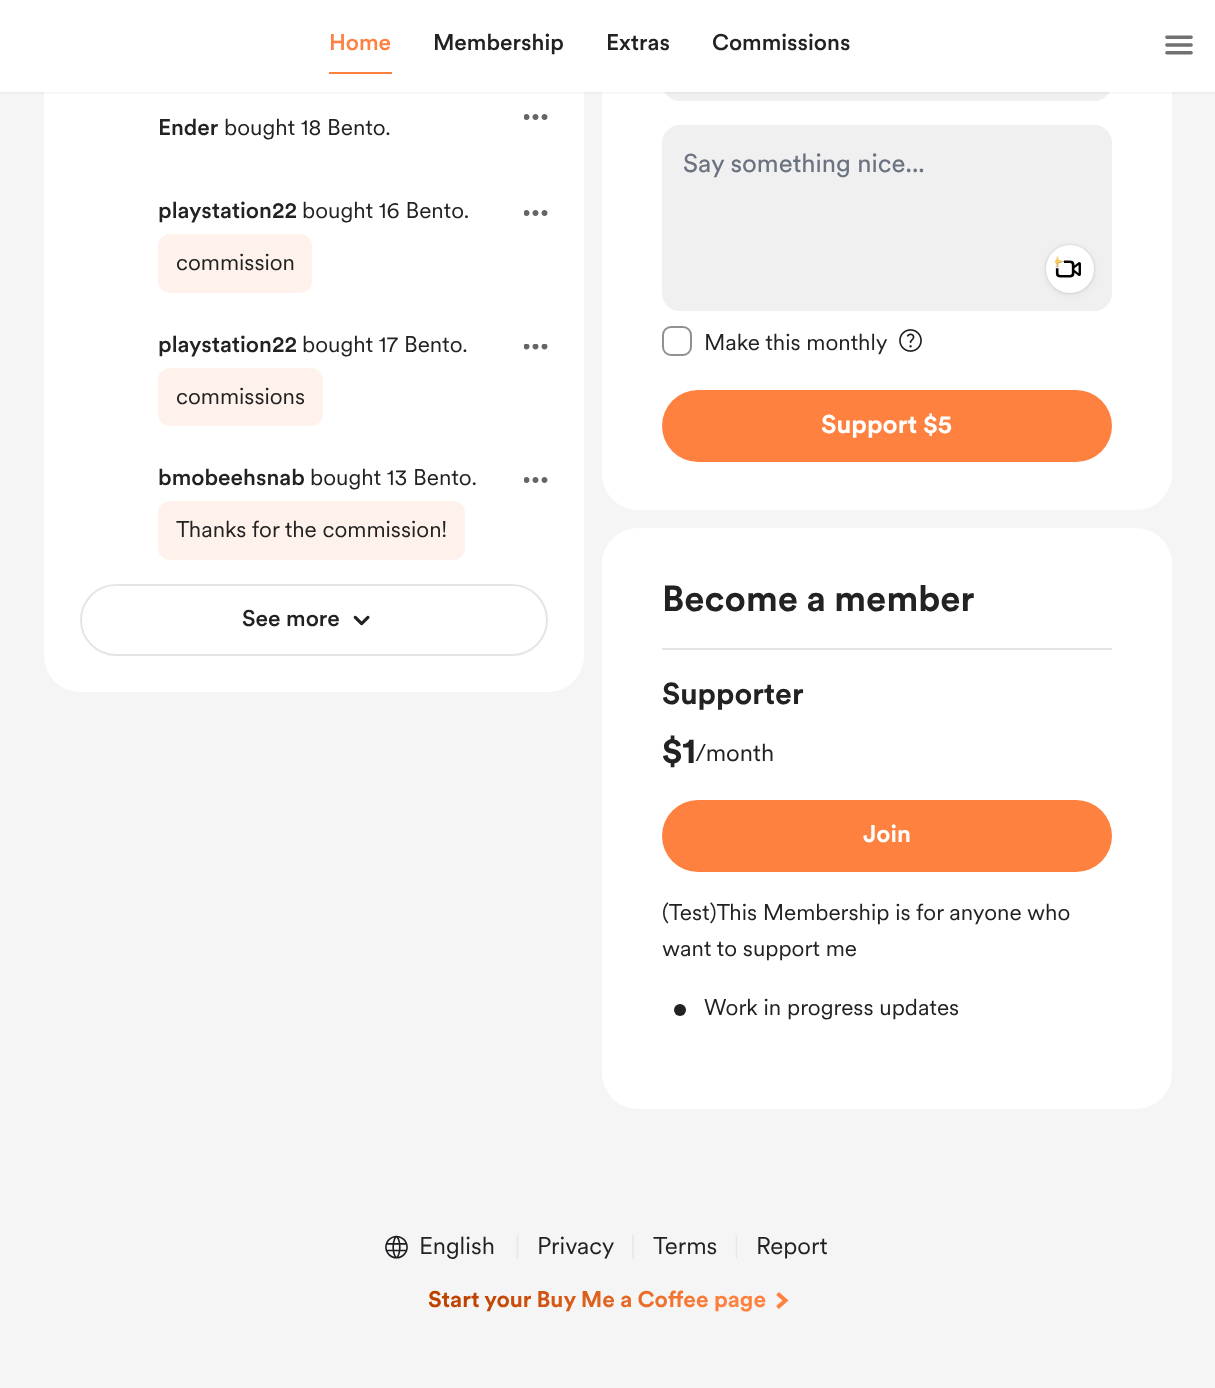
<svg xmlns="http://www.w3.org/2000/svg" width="1215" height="1388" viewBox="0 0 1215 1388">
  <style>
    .t1 { font: 500 22.5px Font; fill: #ff813f; }
    .t2 { font: 500 22.5px Font; fill: #222; }
    .t3 { font: 22.5px 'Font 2'; fill: #222; }
    .t4 { font: 25.5px Font; fill: #6b7280; }
    .t5 { font: bold 25.5px Font; fill: #fff; }
    .t6 { font: bold 36px Font; fill: #222; }
    .t7 { font: bold 30px Font; fill: #222; }
    .t8 { font: 24px 'Font 2'; fill: #222; }
    .t9 { font: bold 24px Font; fill: #fff; }
    .t10 { font: bold 22.5px Font; fill: url(#g1); }
  </style>
  <defs>
    <clipPath id="clip1"><rect x="516" y="1235" width="3" height="24"/></clipPath>
    <clipPath id="clip2"><rect x="735" y="1235" width="3" height="24"/></clipPath>
    <linearGradient id="g1" gradientUnits="userSpaceOnUse" x1="449" y1="1232" x2="766" y2="1367"><stop offset="0.14" stop-color="#bf4300"/><stop offset="0.82" stop-color="#ff813f"/></linearGradient>
  </defs>
  <rect width="100%" height="100%" fill="#f5f5f5"/>
  <rect x="44" y="-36" width="540" height="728" rx="36" fill="#fff"/>
  <rect x="602" y="-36" width="570" height="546" rx="36" fill="#fff"/>
  <rect x="662" y="23" width="450" height="78" rx="18" fill="#f0f0f0"/>
  <rect x="0" y="2" width="1215" height="91" fill="#0000000f" filter="blur(1px)"/>
  <rect x="0" y="0" width="1215" height="92" fill="#fff"/>
  <text x="329" y="50" class="t1">Home</text>
  <rect x="329" y="72" width="63" height="2" fill="#ff813f"/>
  <text x="433" y="50" class="t2">Membership</text>
  <text x="606" y="50" class="t2">Extras</text>
  <text x="712" y="50" class="t2">Commissions</text>
  <image x="1165" y="35" width="28" height="20" href="images/1.png"/>
  <image x="524" y="114" width="24" height="6" href="images/2.png"/>
  <text x="158" y="135" class="t2">Ender</text>
  <text x="224" y="135" class="t3">bought 18 Bento.</text>
  <text x="158" y="218" class="t2">playstation22</text>
  <text x="302" y="218" class="t3">bought 16 Bento.</text>
  <rect x="158" y="234" width="154" height="59" rx="12" fill="#fff2ec"/>
  <text x="176" y="270" class="t3">commission</text>
  <image x="524" y="210" width="24" height="6" href="images/2.png"/>
  <text x="158" y="352" class="t2">playstation22</text>
  <text x="302" y="352" class="t3">bought 17 Bento.</text>
  <rect x="158" y="368" width="165" height="58" rx="12" fill="#fff2ec"/>
  <text x="176" y="404" class="t3">commissions</text>
  <image x="524" y="344" width="24" height="6" href="images/3.png"/>
  <text x="158" y="485" class="t2">bmobeehsnab</text>
  <text x="310" y="485" class="t3">bought 13 Bento.</text>
  <rect x="158" y="501" width="307" height="59" rx="12" fill="#fff2ec"/>
  <text x="176" y="537" class="t3">Thanks for the commission!</text>
  <image x="524" y="477" width="24" height="6" href="images/2.png"/>
  <rect x="81" y="585" width="466" height="70" rx="35" fill="none" stroke="#e5e5e5" stroke-width="2"/>
  <text x="242" y="626" class="t2">See more</text>
  <image x="353" y="615" width="17" height="11" href="images/4.png"/>
  <rect x="662" y="125" width="450" height="186" rx="18" fill="#f0f0f0"/>
  <text x="683" y="172" class="t4">Say something nice...</text>
  <rect x="1046" y="248" width="48" height="48" rx="24" fill="#0000000d" filter="blur(4px)"/>
  <rect x="1046" y="245" width="48" height="48" rx="24" fill="#00000026" filter="blur(1.5px)"/>
  <circle cx="1070" cy="269" r="24" fill="#fff"/>
  <image x="1055" y="260" width="26" height="18" href="images/6.png"/>
  <image x="1055" y="256" width="9" height="13" href="images/5.png"/>
  <rect x="663" y="327" width="28" height="28" rx="8" fill="none" stroke="#919191" stroke-width="2"/>
  <text x="704" y="350" class="t3">Make this monthly</text>
  <image x="899" y="329" width="23" height="23" href="images/7.png"/>
  <rect x="662" y="390" width="450" height="72" rx="36" fill="#ff813f"/>
  <text x="821" y="433" class="t5">Support $5</text>
  <rect x="602" y="528" width="570" height="581" rx="36" fill="#fff"/>
  <text x="662" y="611" class="t6">Become a member</text>
  <rect x="662" y="648" width="450" height="2" fill="#e4e4e4"/>
  <text x="662" y="704" class="t7">Supporter</text>
  <text x="662" y="763" class="t6">$1</text>
  <text x="695" y="761" class="t8">/month</text>
  <rect x="662" y="800" width="450" height="72" rx="36" fill="#ff813f"/>
  <text x="863" y="842" class="t9">Join</text>
  <text x="662" y="920" class="t3">(Test)This Membership is for anyone who</text>
  <text x="662" y="956" class="t3">want to support me</text>
  <circle cx="680" cy="1010" r="6" fill="#222"/>
  <text x="704" y="1015" class="t3">Work in progress updates</text>
  <image x="385" y="1235" width="23" height="24" href="images/8.png"/>
  <text x="419" y="1254" class="t8">English</text>
  <g clip-path="url(#clip1)">
    <path d="M517.5 1234.5V1258.5" fill="none" stroke="#e7e7e7" stroke-width="1.5"/>
  </g>
  <text x="537" y="1254" class="t8">Privacy</text>
  <rect x="632" y="1235" width="2" height="24" fill="#eaeaea"/>
  <text x="653" y="1254" class="t8">Terms</text>
  <g clip-path="url(#clip2)">
    <path d="M736.5 1234.5V1258.5" fill="none" stroke="#e7e7e7" stroke-width="1.5"/>
  </g>
  <text x="756" y="1254" class="t8">Report</text>
  <text x="428" y="1307" class="t10">Start your Buy Me a Coffee page</text>
  <path d="M777.5 1293.5L785.5 1300.5L777.5 1307.5" fill="none" stroke="#ff813f" stroke-width="4"/>
</svg>
